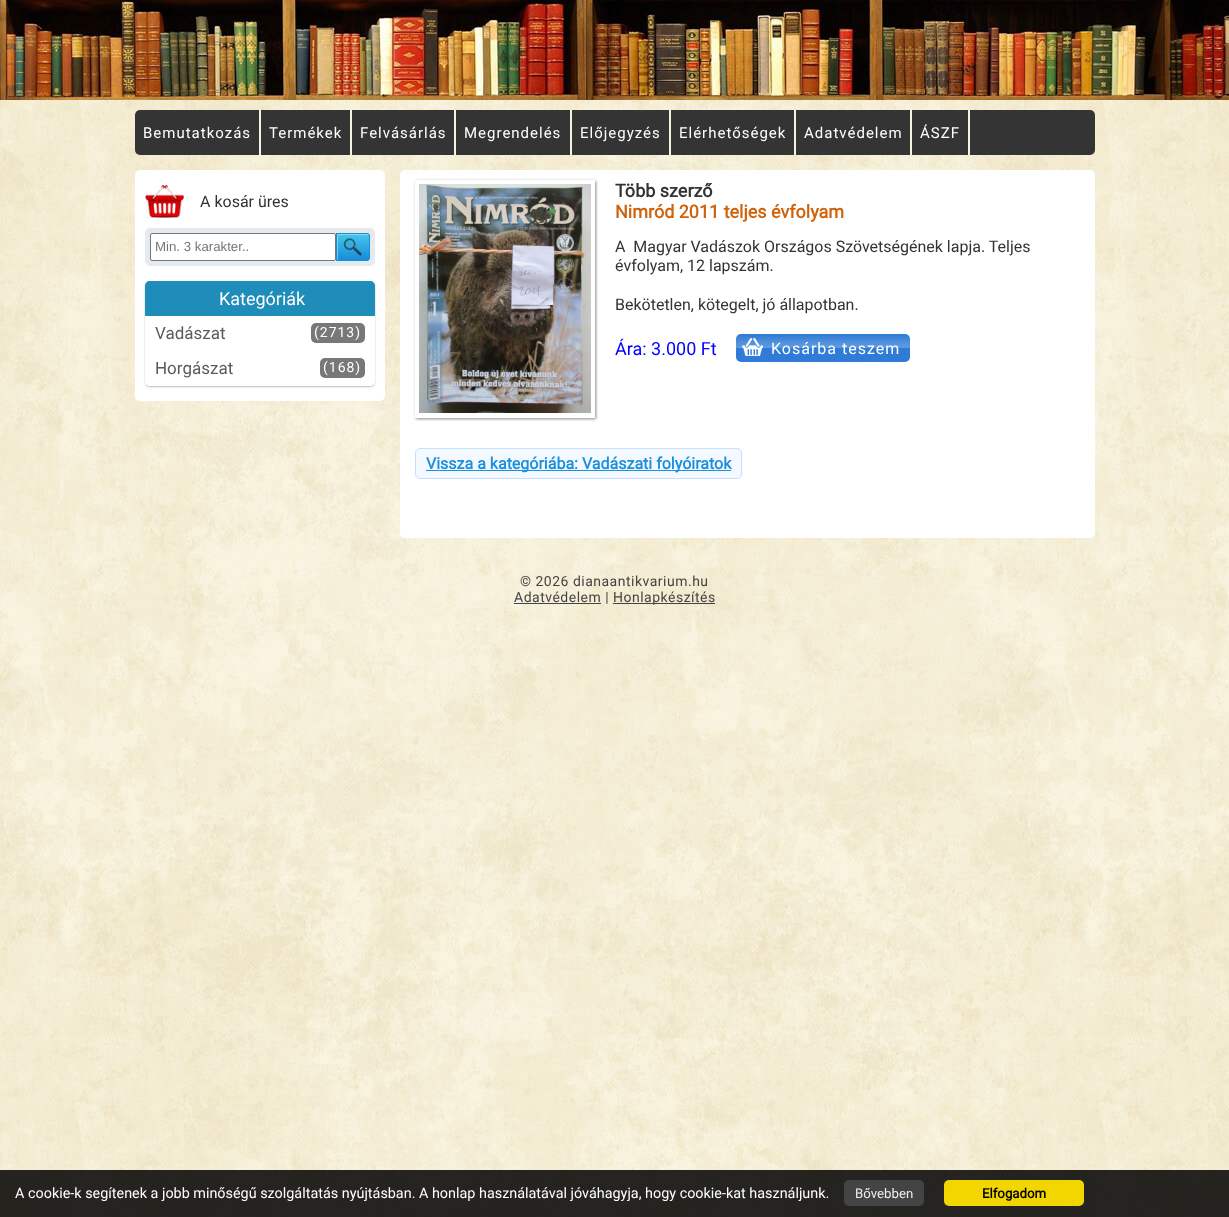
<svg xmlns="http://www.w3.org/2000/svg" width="1229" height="1217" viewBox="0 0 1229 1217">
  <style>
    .t1 { font: 15px Roboto; letter-spacing: 1px; fill: #fff; }
    .t2 { font: 16px Roboto; fill: #333; }
    .t3 { font: 13.25px Liberation Sans; fill: #757575; }
    .t4 { font: 18px Roboto; fill: #fff; }
    .t5 { font: 17px Roboto; fill: #5b5b5b; }
    .t6 { font: 14px Roboto; letter-spacing: 1px; fill: #fff; }
    .t7 { font: bold 18px Roboto; fill: #333; }
    .t8 { font: bold 18px Roboto; fill: #cf630c; }
    .t9 { font: 18px Roboto; fill: #00f; }
    .t10 { font: 16px Roboto; letter-spacing: 1px; fill: #fff; }
    .t11 { font: bold 16px Roboto; fill: #1a90df; }
    .t12 { font: 14px Roboto; letter-spacing: 0.5px; fill: #444; }
    .t13 { font: 14.4px Roboto; fill: #fff; }
    .t14 { font: 13.25px Roboto; fill: #eee; }
    .t15 { font: bold 13.25px Roboto; fill: #000; }
  </style>
  <defs>
    <clipPath id="clip1"><path d="M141 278H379V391H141ZM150 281H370C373 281 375 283 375 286V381C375 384 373 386 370 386H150C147 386 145 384 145 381V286C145 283 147 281 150 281Z" clip-rule="evenodd"/></clipPath>
    <clipPath id="clip2"><path d="M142 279H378V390H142ZM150 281H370C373 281 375 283 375 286V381C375 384 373 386 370 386H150C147 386 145 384 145 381V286C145 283 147 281 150 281Z" clip-rule="evenodd"/></clipPath>
    <clipPath id="clip3"><path d="M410 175H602V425H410ZM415 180H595V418H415Z" clip-rule="evenodd"/></clipPath>
  </defs>
  <rect width="100%" height="100%" fill="#fff"/>
  <image x="0" y="100" width="1229" height="1117" href="images/1.png"/>
  <image x="0" y="0" width="1229" height="100" href="images/2.png"/>
  <rect x="135" y="110" width="960" height="45" rx="5" fill="#343434"/>
  <rect x="259" y="110" width="2" height="45" fill="#f7f2de"/>
  <text x="143" y="138" class="t1">Bemutatkozás</text>
  <rect x="350" y="110" width="2" height="45" fill="#f7f2de"/>
  <text x="269" y="138" class="t1">Termékek</text>
  <rect x="454" y="110" width="2" height="45" fill="#f7f2de"/>
  <text x="360" y="138" class="t1">Felvásárlás</text>
  <rect x="570" y="110" width="2" height="45" fill="#f7f2de"/>
  <text x="464" y="138" class="t1">Megrendelés</text>
  <rect x="669" y="110" width="2" height="45" fill="#f7f2de"/>
  <text x="580" y="138" class="t1">Előjegyzés</text>
  <rect x="794" y="110" width="2" height="45" fill="#f7f2de"/>
  <text x="679" y="138" class="t1">Elérhetőségek</text>
  <rect x="910" y="110" width="2" height="45" fill="#f7f2de"/>
  <text x="804" y="138" class="t1">Adatvédelem</text>
  <rect x="968" y="110" width="2" height="45" fill="#f7f2de"/>
  <text x="920" y="138" class="t1">ÁSZF</text>
  <rect x="135" y="170" width="250" height="231" rx="5" fill="#fff"/>
  <image x="145" y="185" width="39" height="33" href="images/3.png"/>
  <text x="200" y="207" class="t2">A kosár üres</text>
  <rect x="147.5" y="230.5" width="225" height="33" rx="2.5" fill="#e4eaee" stroke="#e4eaee" stroke-width="5"/>
  <rect x="150.5" y="233.5" width="185" height="27" rx="1.5" fill="#fff" stroke="#767676"/>
  <text x="155" y="251" class="t3">Min. 3 karakter..</text>
  <image x="336" y="233" width="34" height="28" href="images/4.png"/>
  <g clip-path="url(#clip1)">
    <rect x="145" y="282" width="230" height="105" rx="5" fill="#0000001a" filter="blur(1px)"/>
  </g>
  <g clip-path="url(#clip2)">
    <rect x="146" y="283" width="228" height="103" rx="4" fill="#00000066" filter="blur(1px)"/>
  </g>
  <path d="M150 281H370C373 281 375 283 375 286V316H145V286C145 283 147 281 150 281Z" fill="#1e8db9"/>
  <text x="219" y="305" class="t4">Kategóriák</text>
  <text x="155" y="339" class="t5">Vadászat</text>
  <rect x="311" y="323" width="54" height="20" rx="5" fill="#787878"/>
  <text x="314" y="337" class="t6">(2713)</text>
  <text x="155" y="374" class="t5">Horgászat</text>
  <rect x="320" y="358" width="45" height="20" rx="5" fill="#787878"/>
  <text x="323" y="372" class="t6">(168)</text>
  <rect x="400" y="170" width="695" height="368" rx="5" fill="#fff"/>
  <g clip-path="url(#clip3)">
    <rect x="416" y="181" width="180" height="238" fill="#888" filter="blur(1.5px)"/>
  </g>
  <image x="419" y="184" width="172" height="229" href="images/5.png"/>
  <text x="615" y="197" class="t7">Több szerző</text>
  <text x="615" y="218" class="t8">Nimród 2011 teljes évfolyam</text>
  <text x="615" y="252" class="t2" xml:space="preserve">A  Magyar Vadászok Országos Szövetségének lapja. Teljes</text>
  <text x="615" y="271" class="t2">évfolyam, 12 lapszám.</text>
  <text x="615" y="310" class="t2">Bekötetlen, kötegelt, jó állapotban.</text>
  <text x="615" y="355" class="t9">Ára: 3.000 Ft</text>
  <rect x="736" y="334" width="174" height="28" rx="5" fill="#2f7bd7"/>
  <image x="736" y="335" width="174" height="21" href="images/6.png"/>
  <text x="771" y="354" class="t10">Kosárba teszem</text>
  <rect x="415.5" y="448.5" width="326" height="30" rx="4.5" fill="#f4f9ff" stroke="#c4dfff"/>
  <rect x="426" y="470" width="305" height="1" fill="#1a90df"/>
  <text x="426" y="469" class="t11">Vissza a kategóriába: Vadászati folyóiratok</text>
  <text x="520" y="586" class="t12">© 2026 dianaantikvarium.hu</text>
  <rect x="514" y="603" width="87" height="1" fill="#444"/>
  <text x="514" y="602" class="t12">Adatvédelem |</text>
  <rect x="613" y="603" width="102" height="1" fill="#444"/>
  <text x="613" y="602" class="t12">Honlapkészítés</text>
  <rect x="0" y="1170" width="1229" height="47" fill="#000000d9"/>
  <text x="15" y="1198" class="t13">A cookie-k segítenek a jobb minőségű szolgáltatás nyújtásban. A honlap használatával jóváhagyja, hogy cookie-kat használjunk.</text>
  <rect x="844" y="1180" width="80" height="26" rx="5" fill="#444"/>
  <text x="855" y="1198" class="t14">Bővebben</text>
  <rect x="944" y="1180" width="140" height="26" rx="5" fill="#f1d600"/>
  <text x="982" y="1198" class="t15">Elfogadom</text>
</svg>
